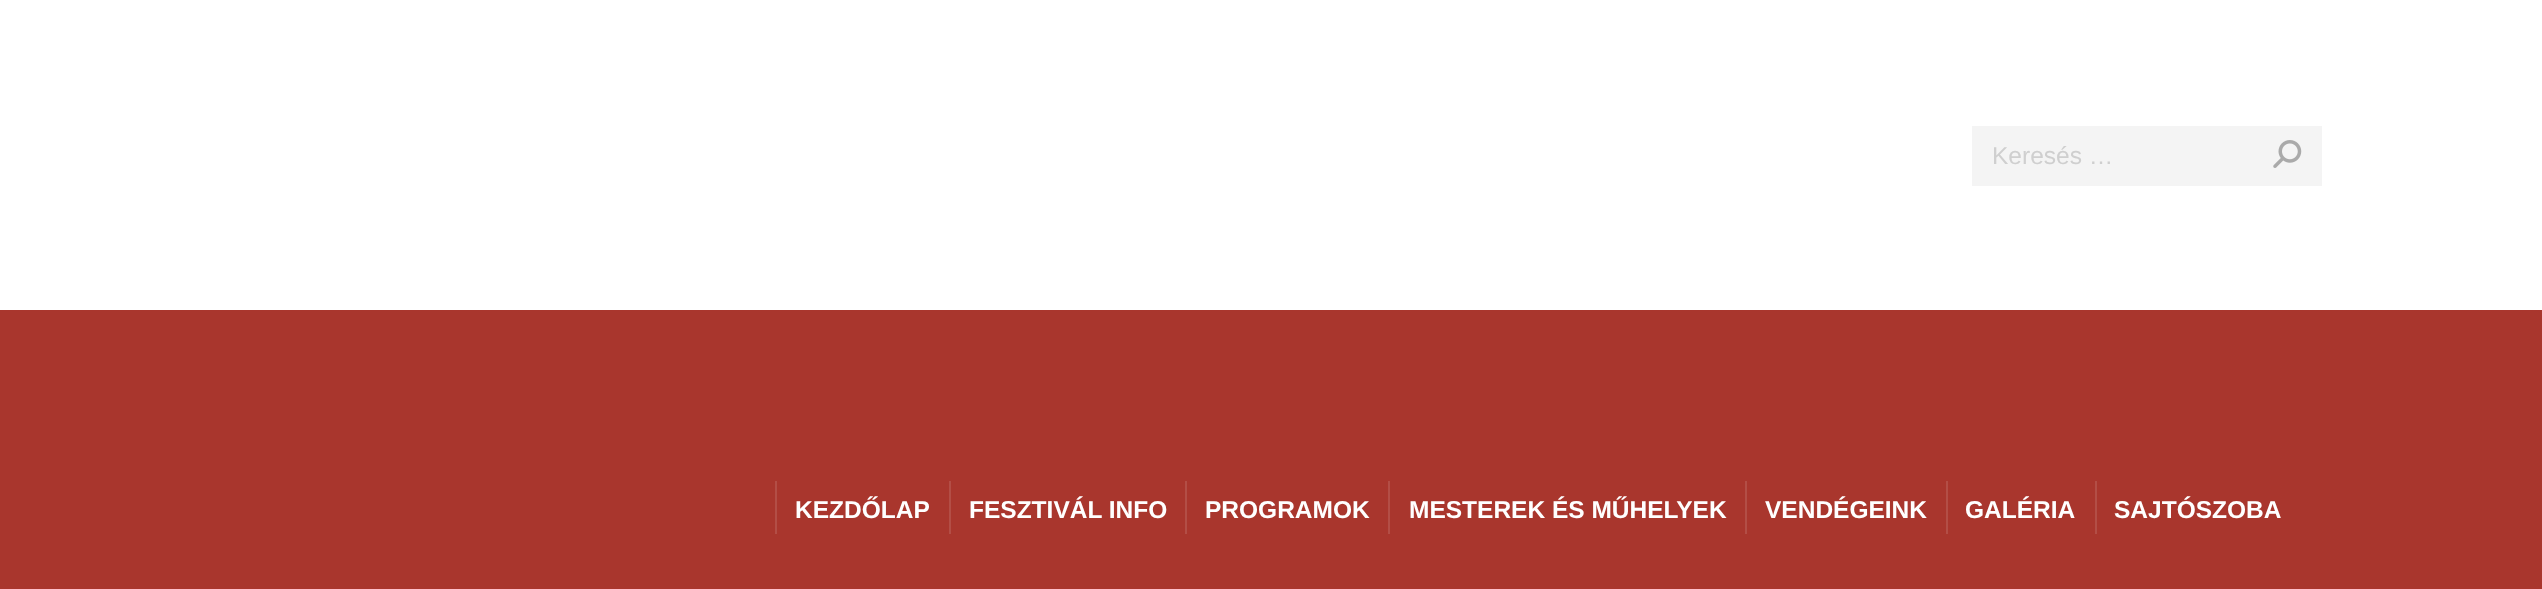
<svg xmlns="http://www.w3.org/2000/svg" width="2542" height="589" viewBox="0 0 2542 589">
  <style>
    .t1 { font: 24.5px Liberation Sans; fill: #cfcfcf; }
    .t2 { font: bold 24.5px Liberation Sans; fill: #fff; }
  </style>
  <rect width="100%" height="100%" fill="#a9362d"/>
  <rect x="0" y="0" width="2542" height="310" fill="#fff"/>
  <rect x="1972" y="126" width="350" height="60" fill="#f4f4f4"/>
  <text x="1992" y="164" class="t1">Keresés …</text>
  <image x="2273" y="140" width="29" height="28" href="images/1.png"/>
  <rect x="775" y="481" width="2" height="53" fill="#b34e46"/>
  <text x="795" y="518" class="t2">KEZDŐLAP</text>
  <rect x="949" y="481" width="2" height="53" fill="#b34e46"/>
  <text x="969" y="518" class="t2">FESZTIVÁL INFO</text>
  <rect x="1185" y="481" width="2" height="53" fill="#b34e46"/>
  <text x="1205" y="518" class="t2">PROGRAMOK</text>
  <rect x="1388" y="481" width="2" height="53" fill="#b34e46"/>
  <text x="1409" y="518" class="t2">MESTEREK ÉS MŰHELYEK</text>
  <rect x="1745" y="481" width="2" height="53" fill="#b34e46"/>
  <text x="1765" y="518" class="t2">VENDÉGEINK</text>
  <rect x="1946" y="481" width="2" height="53" fill="#b34e46"/>
  <text x="1965" y="518" class="t2">GALÉRIA</text>
  <rect x="2095" y="481" width="2" height="53" fill="#b34e46"/>
  <text x="2114" y="518" class="t2">SAJTÓSZOBA</text>
</svg>
